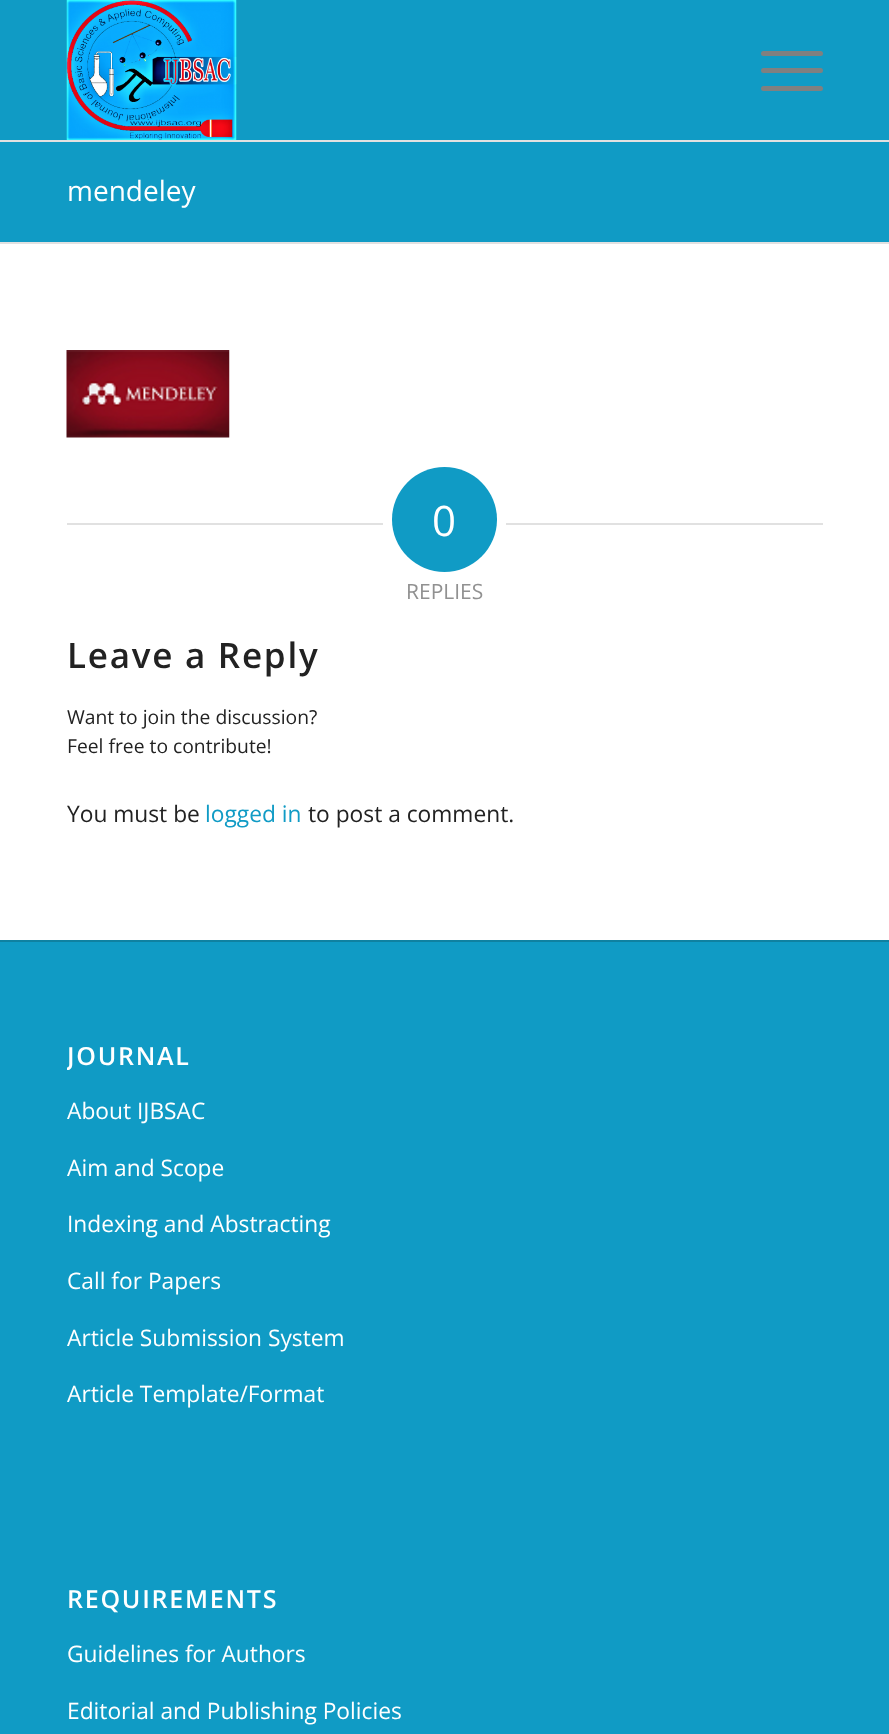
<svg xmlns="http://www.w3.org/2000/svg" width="889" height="1734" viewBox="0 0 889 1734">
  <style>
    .t1 { font: 28px Open Sans; fill: #fff; }
    .t2 { font: 42px Open Sans; fill: #fff; }
    .t3 { font: 21px Open Sans; fill: #919191; }
    .t4 { font: 600 35px Open Sans; letter-spacing: 1.75px; fill: #222; }
    .t5 { font: 19.3px Open Sans; fill: #222; }
    .t6 { font: 22.75px Open Sans; fill: #222; }
    .t7 { font: 22.75px Open Sans; fill: #109bc5; }
    .t8 { font: 600 25px Open Sans; letter-spacing: 1.75px; fill: #fff; }
    .t9 { font: 22.75px Open Sans; fill: #fff; }
  </style>
  <defs>
    <clipPath id="clip1"><rect x="67" y="1020" width="756" height="405"/></clipPath>
  </defs>
  <rect width="100%" height="100%" fill="#109bc5"/>
  <rect x="0" y="140" width="889" height="2" fill="#e1e1e1"/>
  <image x="66" y="0" width="171" height="140" href="images/1.png"/>
  <rect x="761" y="68" width="62" height="5" rx="2.5" fill="#808080"/>
  <rect x="761" y="51" width="62" height="5" rx="2.5" fill="#808080"/>
  <rect x="761" y="86" width="62" height="5" rx="2.5" fill="#808080"/>
  <text x="67" y="201" class="t1">mendeley</text>
  <rect x="0" y="244" width="889" height="696" fill="#fff"/>
  <rect x="0" y="242" width="889" height="2" fill="#e1e1e1"/>
  <image x="66" y="350" width="164" height="88" href="images/2.png"/>
  <rect x="67" y="523" width="316" height="2" fill="#e1e1e1"/>
  <circle cx="444.5" cy="519.5" r="52.5" fill="#109bc5"/>
  <text x="432" y="536" class="t2">0</text>
  <rect x="506" y="523" width="317" height="2" fill="#e1e1e1"/>
  <text x="406" y="599" class="t3">REPLIES</text>
  <text x="67" y="668" class="t4">Leave a Reply</text>
  <text x="67" y="724" class="t5">Want to join the discussion?</text>
  <text x="67" y="753" class="t5">Feel free to contribute!</text>
  <text x="67" y="822" class="t6">You must be</text>
  <text x="205" y="822" class="t7">logged in</text>
  <text x="308" y="822" class="t6">to post a comment.</text>
  <rect x="0" y="940" width="889" height="2" fill="#0f81a1"/>
  <g clip-path="url(#clip1)">
    <text x="67" y="1065" class="t8">JOURNAL</text>
  </g>
  <text x="67" y="1119" class="t9">About IJBSAC</text>
  <text x="67" y="1176" class="t9">Aim and Scope</text>
  <text x="67" y="1232" class="t9">Indexing and Abstracting</text>
  <text x="67" y="1289" class="t9">Call for Papers</text>
  <text x="67" y="1346" class="t9">Article Submission System</text>
  <text x="67" y="1402" class="t9">Article Template/Format</text>
  <text x="67" y="1608" class="t8">REQUIREMENTS</text>
  <text x="67" y="1662" class="t9">Guidelines for Authors</text>
  <text x="67" y="1719" class="t9">Editorial and Publishing Policies</text>
</svg>
